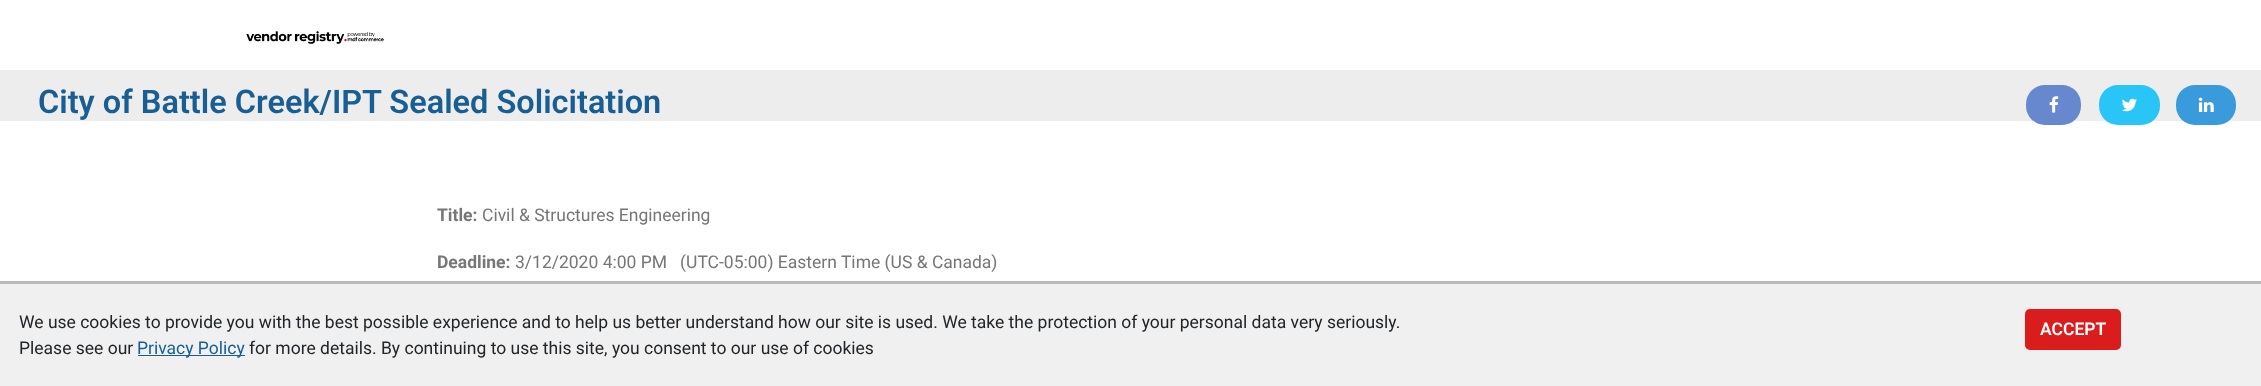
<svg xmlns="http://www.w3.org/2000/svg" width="2261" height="386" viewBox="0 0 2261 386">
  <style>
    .t1 { font: 600 32.5px Roboto; fill: #195e93; }
    .t2 { font: bold 17.5px Roboto; fill: #767676; }
    .t3 { font: 17.5px Roboto; fill: #767676; }
    .t4 { font: 17.5px Roboto; fill: #212529; }
    .t5 { font: 17.5px Roboto; fill: #195e93; }
    .t6 { font: 600 17.5px Roboto; fill: #fff; }
  </style>
  <rect width="100%" height="100%" fill="#ededed"/>
  <rect x="0" y="0" width="2261" height="70" fill="#fff"/>
  <image x="246" y="31" width="138" height="13" href="images/1.png"/>
  <text x="38" y="113" class="t1">City of Battle Creek/IPT Sealed Solicitation</text>
  <rect x="0" y="121" width="2261" height="160" fill="#fff"/>
  <rect x="2026" y="85" width="55" height="40" rx="19" fill="#6788ce"/>
  <image x="2049" y="96" width="10" height="17" href="images/2.png"/>
  <rect x="2099" y="85" width="61" height="40" rx="19" fill="#29c5f6"/>
  <image x="2122" y="98" width="15" height="14" href="images/3.png"/>
  <rect x="2176" y="85" width="60" height="40" rx="19" fill="#3a9bdc"/>
  <image x="2198" y="97" width="16" height="15" href="images/4.png"/>
  <text x="437" y="221" class="t2">Title:</text>
  <text x="482" y="221" class="t3">Civil &amp; Structures Engineering</text>
  <text x="437" y="268" class="t2">Deadline:</text>
  <text x="515" y="268" class="t3" xml:space="preserve">3/12/2020 4:00 PM   (UTC-05:00) Eastern Time (US &amp; Canada)</text>
  <rect x="0" y="284" width="2261" height="102" fill="#f0f0f0"/>
  <rect x="0" y="281" width="2261" height="3" fill="#bbb"/>
  <text x="19" y="328" class="t4">We use cookies to provide you with the best possible experience and to help us better understand how our site is used. We take the protection of your personal data very seriously.</text>
  <text x="19" y="354" class="t4">Please see our</text>
  <rect x="138" y="355" width="107" height="1" fill="#195e93"/>
  <text x="137" y="354" class="t5">Privacy Policy</text>
  <text x="249" y="354" class="t4">for more details. By continuing to use this site, you consent to our use of cookies</text>
  <rect x="2025" y="309" width="96" height="41" rx="5" fill="#da1d1c"/>
  <text x="2040" y="335" class="t6">ACCEPT</text>
</svg>
